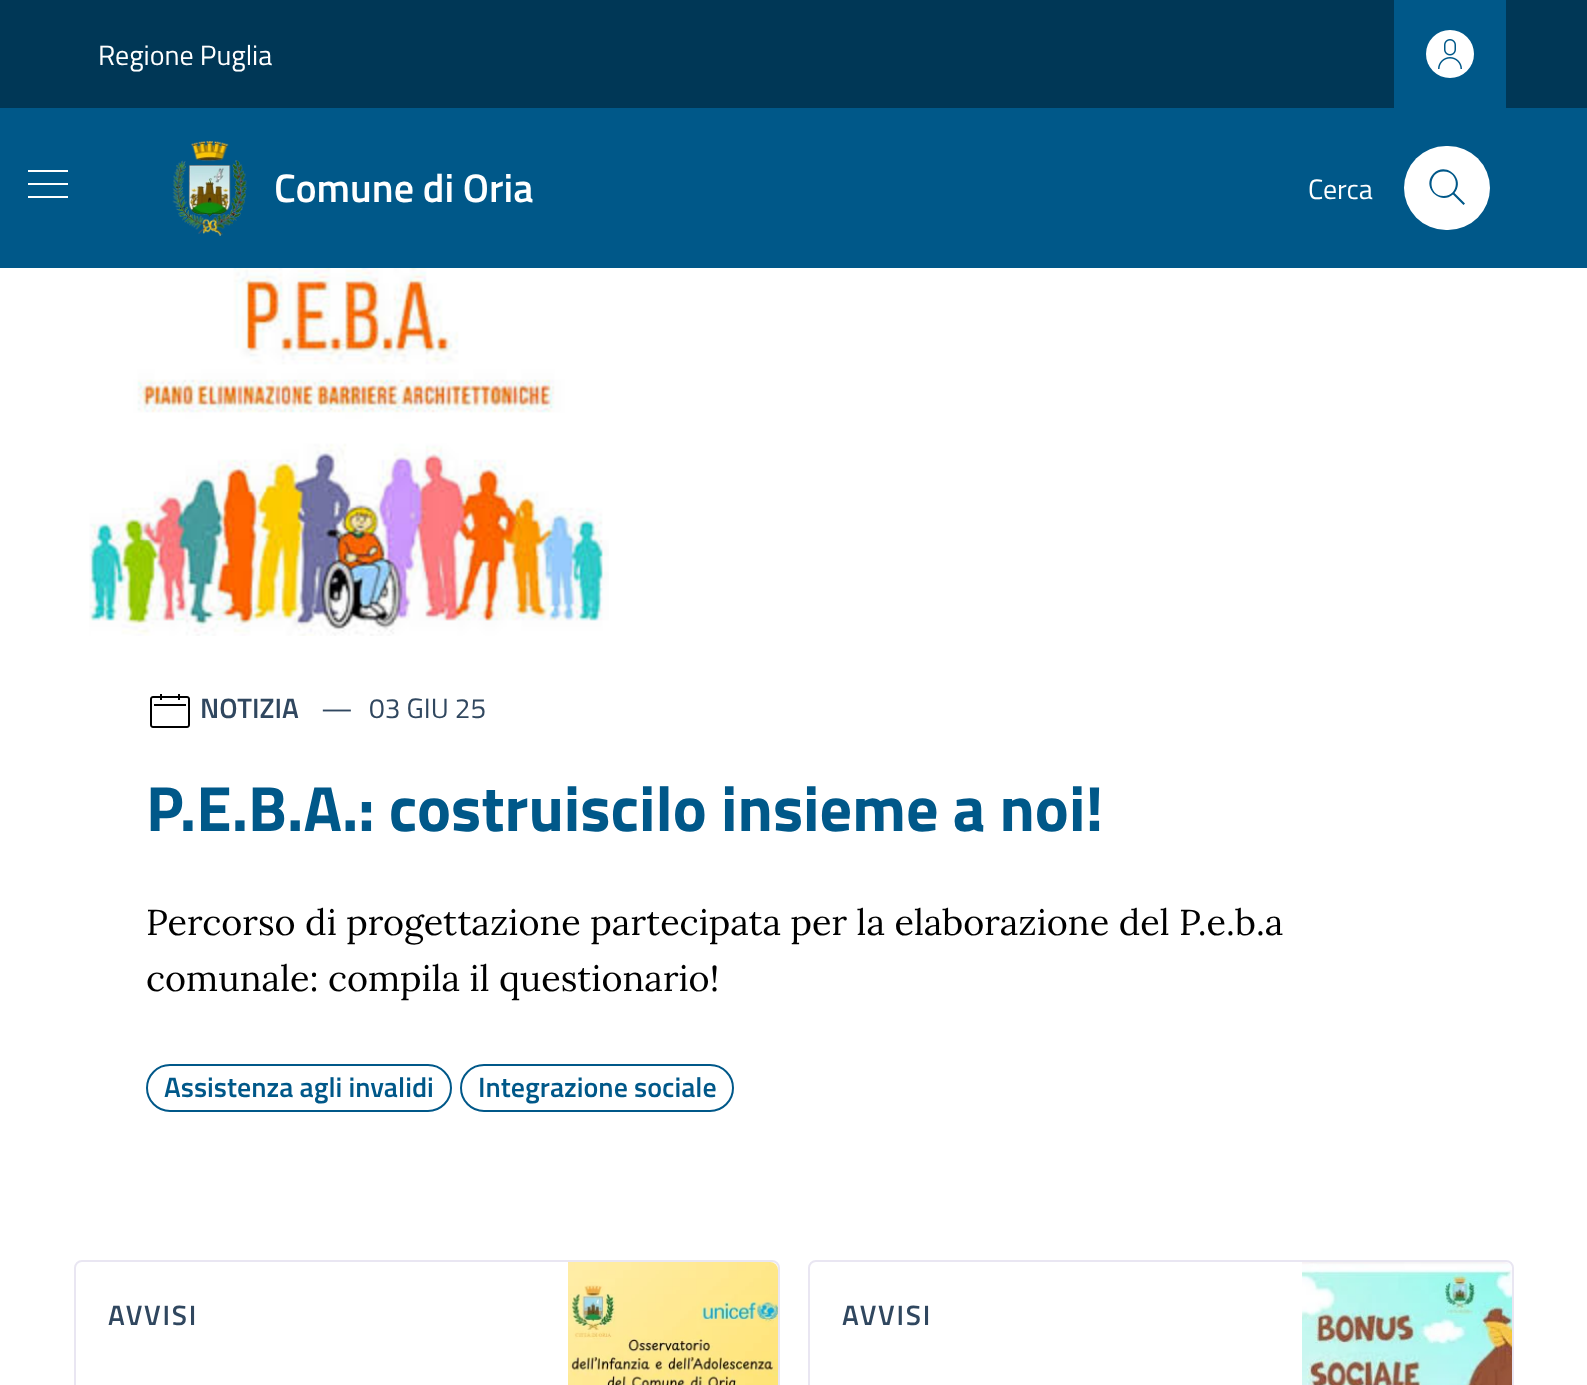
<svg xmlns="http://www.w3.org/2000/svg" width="1587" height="1385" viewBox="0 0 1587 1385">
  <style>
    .t1 { font: 28px Titillium Web; fill: #fff; }
    .t2 { font: 600 40px Titillium Web; fill: #fff; }
    .t3 { font: 600 28px Titillium Web; fill: #30475f; }
    .t4 { font: 28px Titillium Web; fill: #30475f; }
    .t5 { font: bold 64px Titillium Web; fill: #005889; }
    .t6 { font: 36px Lora; fill: #000; }
    .t7 { font: 600 28px Titillium Web; fill: #005889; }
    .t8 { font: 600 28px Titillium Web; letter-spacing: 1.75px; fill: #30475f; }
  </style>
  <rect width="100%" height="100%" fill="#fff"/>
  <rect x="0" y="0" width="1587" height="108" fill="#003756"/>
  <text x="98" y="65" class="t1">Regione Puglia</text>
  <rect x="1394" y="0" width="112" height="108" fill="#005889"/>
  <circle cx="1450" cy="54" r="24" fill="#fff"/>
  <image x="1438" y="39" width="24" height="30" href="images/1.png"/>
  <rect x="0" y="108" width="1587" height="160" fill="#005889"/>
  <path d="M68 170V172H28V170ZM28 185H68V183H28ZM28 198H68V196H28Z" fill="#fff"/>
  <image x="172" y="141" width="75" height="95" href="images/2.png"/>
  <text x="274" y="202" class="t2">Comune di Oria</text>
  <text x="1308" y="199" class="t1">Cerca</text>
  <rect x="1404" y="146" width="86" height="84" rx="42" fill="#fff"/>
  <path d="M1465 203.5L1454.5 193C1466 179.5 1446.5 161 1433.5 173.5C1421 186.5 1439.5 206 1453 194.5L1463.5 205ZM1443.5 196C1427.5 196 1427.5 171.5 1443.5 171.5C1460 171.5 1460 196 1443.5 196Z" fill="#005889"/>
  <image x="89" y="268" width="520" height="368" href="images/3.png"/>
  <image x="150" y="694" width="40" height="34" href="images/4.png"/>
  <text x="200" y="718" class="t3">NOTIZIA</text>
  <text x="321" y="718" class="t4">—</text>
  <text x="369" y="718" class="t4">03 GIU 25</text>
  <text x="146" y="831" class="t5">P.E.B.A.: costruiscilo insieme a noi!</text>
  <text x="146" y="935" class="t6">Percorso di progettazione partecipata per la elaborazione del P.e.b.a</text>
  <text x="146" y="991" class="t6">comunale: compila il questionario!</text>
  <rect x="147" y="1065" width="304" height="46" rx="23" fill="none" stroke="#005889" stroke-width="2"/>
  <text x="164" y="1097" class="t7">Assistenza agli invalidi</text>
  <rect x="461" y="1065" width="272" height="46" rx="23" fill="none" stroke="#005889" stroke-width="2"/>
  <text x="478" y="1097" class="t7">Integrazione sociale</text>
  <rect x="75" y="1261" width="704" height="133" rx="7" fill="none" stroke="#e9e6f2" stroke-width="2"/>
  <text x="108" y="1325" class="t8">AVVISI</text>
  <image x="568" y="1262" width="210" height="123" href="images/5.png"/>
  <rect x="809" y="1261" width="704" height="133" rx="7" fill="none" stroke="#e9e6f2" stroke-width="2"/>
  <text x="842" y="1325" class="t8">AVVISI</text>
  <image x="1302" y="1262" width="210" height="123" href="images/6.png"/>
</svg>
